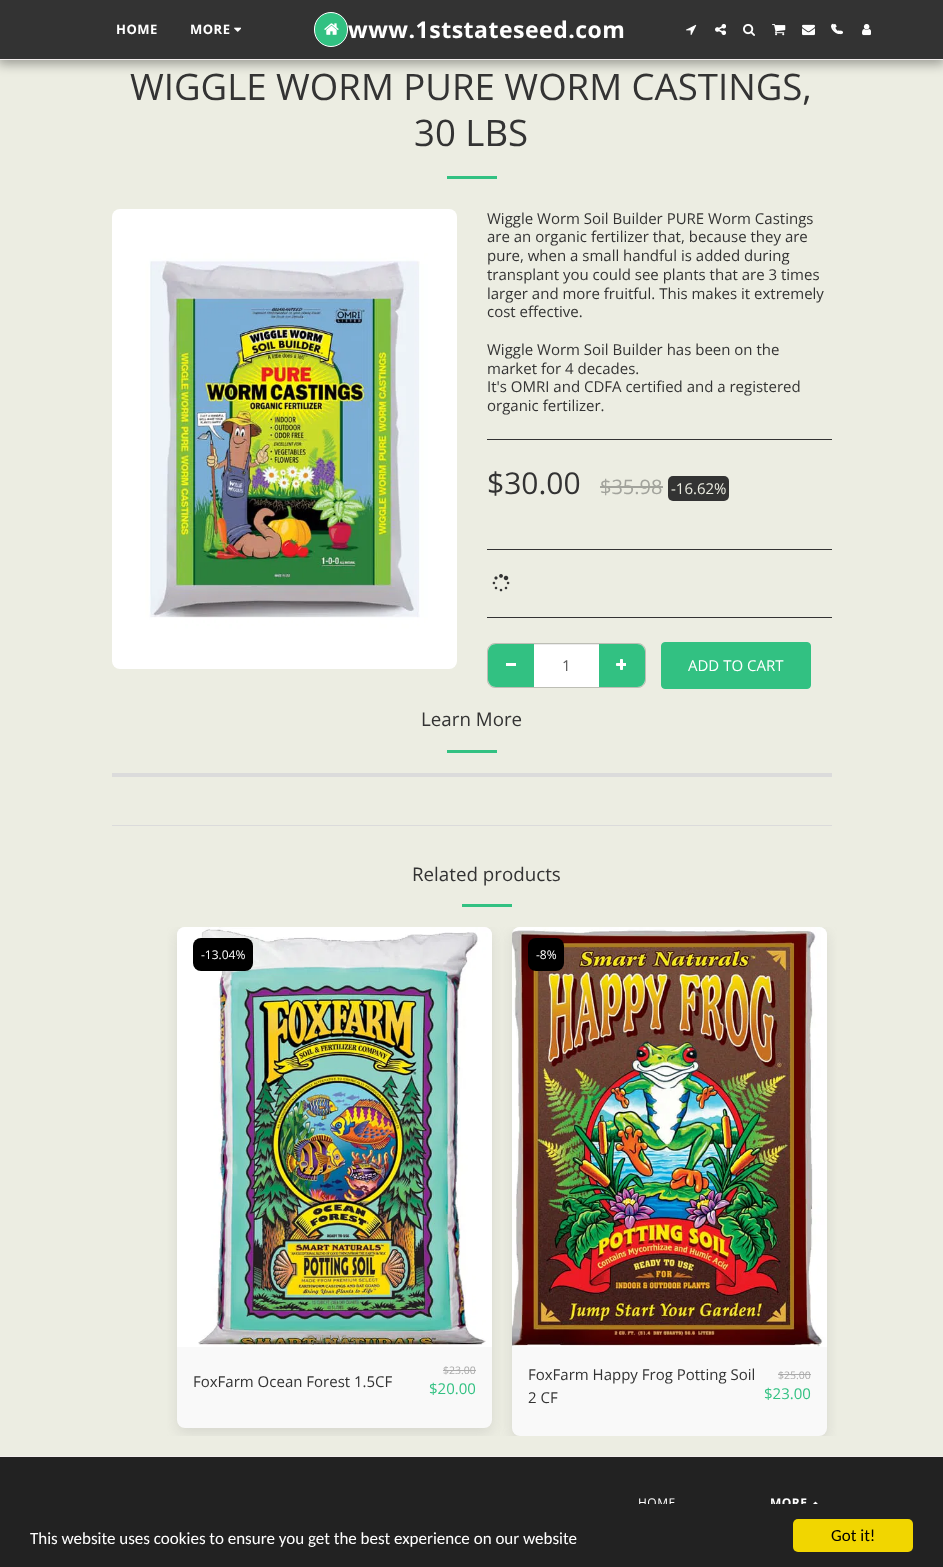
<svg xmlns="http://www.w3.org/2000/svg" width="943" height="1567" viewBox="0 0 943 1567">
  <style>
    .t1 { font: bold 13px Open Sans; letter-spacing: 0.5px; fill: #fff; }
    .t2 { font: bold 23px Open Sans; letter-spacing: 0.5px; fill: #fff; }
    .t3 { font: 36.6px Open Sans; fill: #333; }
    .t4 { font: 15px Open Sans; fill: #333; }
    .t5 { font: 30px Open Sans; fill: #333; }
    .t6 { font: 20px Open Sans; fill: #a2a39c; }
    .t7 { font: 15px Open Sans; fill: #ecede2; }
    .t8 { font: 15px Open Sans; fill: #555; }
    .t9 { font: 15px Open Sans; fill: #fff; }
    .t10 { font: 18.75px Open Sans; fill: #333; }
    .t11 { font: 12px Open Sans; fill: #fff; }
    .t12 { font: 10.5px Open Sans; fill: #82795b; }
    .t13 { font: 10.5px Open Sans; fill: #aaa; }
    .t14 { font: 15px Open Sans; fill: #32c182; }
    .t15 { font: 12px Open Sans; letter-spacing: 0.5px; fill: #fff; }
    .t16 { font: bold 12px Open Sans; letter-spacing: 0.5px; fill: #fff; }
    .t17 { font: 17px Carlito; fill: #fff; }
    .t18 { font: 17px Carlito; fill: #000; }
  </style>
  <defs>
    <clipPath id="clip1"><rect x="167" y="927" width="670" height="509"/></clipPath>
  </defs>
  <rect width="100%" height="100%" fill="#ecede2"/>
  <rect x="-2" y="0" width="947" height="64" fill="#00000059" filter="blur(6px)"/>
  <rect x="0" y="0" width="943" height="59" fill="#333"/>
  <rect x="0" y="59" width="943" height="1" fill="#f3eeee"/>
  <text x="116" y="34" class="t1">HOME</text>
  <text x="190" y="34" class="t1">MORE</text>
  <image x="234" y="27" width="7" height="5" href="images/1.png"/>
  <rect x="314.5" y="12.5" width="33" height="34" rx="16.5" fill="#32c182" stroke="#fff"/>
  <image x="324" y="23" width="15" height="12" href="images/2.png"/>
  <text x="348" y="38" class="t2">www.1ststateseed.com</text>
  <image x="686" y="24" width="11" height="11" href="images/3.png"/>
  <image x="715" y="23" width="11" height="13" href="images/4.png"/>
  <image x="743" y="23" width="12" height="13" href="images/5.png"/>
  <image x="772" y="24" width="14" height="12" href="images/6.png"/>
  <image x="802" y="24" width="13" height="12" href="images/7.png"/>
  <image x="833" y="24" width="10" height="11" href="images/8.png"/>
  <image x="831" y="23" width="9" height="11" href="images/9.png"/>
  <image x="862" y="24" width="9" height="12" href="images/10.png"/>
  <text x="130" y="100" class="t3">WIGGLE WORM PURE WORM CASTINGS,</text>
  <text x="414" y="146" class="t3">30 LBS</text>
  <rect x="447" y="176" width="50" height="3" fill="#32c182"/>
  <image x="112" y="209" width="345" height="460" href="images/11.png"/>
  <text x="487" y="224" class="t4">Wiggle Worm Soil Builder PURE Worm Castings</text>
  <text x="487" y="242" class="t4">are an organic fertilizer that, because they are</text>
  <text x="487" y="261" class="t4">pure, when a small handful is added during</text>
  <text x="487" y="280" class="t4">transplant you could see plants that are 3 times</text>
  <text x="487" y="299" class="t4">larger and more fruitful. This makes it extremely</text>
  <text x="487" y="317" class="t4">cost effective.</text>
  <text x="487" y="355" class="t4">Wiggle Worm Soil Builder has been on the</text>
  <text x="487" y="374" class="t4">market for 4 decades.</text>
  <text x="487" y="392" class="t4">It's OMRI and CDFA certified and a registered</text>
  <text x="487" y="411" class="t4">organic fertilizer.</text>
  <rect x="487" y="439" width="345" height="1" fill="#333"/>
  <text x="487" y="494" class="t5">$30.00</text>
  <text x="600" y="494" class="t6">$35.98</text>
  <rect x="600" y="486" width="63" height="2" fill="#a2a39c"/>
  <rect x="668" y="476" width="61" height="25" rx="5" fill="#333"/>
  <text x="671" y="494" class="t7">-16.62%</text>
  <rect x="487" y="549" width="345" height="1" fill="#333"/>
  <image x="492" y="574" width="18" height="18" href="images/12.png"/>
  <rect x="487" y="617" width="345" height="1" fill="#333"/>
  <rect x="487.5" y="643.5" width="158" height="44" rx="7.5" fill="none" stroke="#bdbeb5"/>
  <path d="M496 644H535V687H496C491.5 687 488 683.5 488 679V652C488 647.5 491.5 644 496 644Z" fill="#32c182"/>
  <rect x="506" y="663" width="10" height="3" fill="#fff"/>
  <path d="M598 644H637C641.5 644 645 647.5 645 652V679C645 683.5 641.5 687 637 687H598Z" fill="#32c182"/>
  <rect x="534" y="645" width="65" height="42" fill="#fff"/>
  <rect x="534" y="644" width="65" height="1" fill="#ececec"/>
  <text x="562" y="671" class="t8">1</text>
  <image x="616" y="659" width="10" height="11" href="images/13.png"/>
  <rect x="661.5" y="642.5" width="149" height="46" rx="3.5" fill="#32c182" stroke="#32c182"/>
  <text x="688" y="671" class="t9">ADD TO CART</text>
  <text x="421" y="726" class="t10">Learn More</text>
  <rect x="447" y="750" width="50" height="3" fill="#32c182"/>
  <rect x="112" y="773" width="720" height="4" fill="#dbdbdb"/>
  <rect x="112" y="825" width="720" height="1" fill="#dbdbdb"/>
  <text x="412" y="881" class="t10">Related products</text>
  <rect x="462" y="904" width="50" height="3" fill="#32c182"/>
  <g clip-path="url(#clip1)">
    <rect x="177" y="932" width="315" height="501" rx="8" fill="#81818133" filter="blur(6.5px)"/>
  </g>
  <rect x="177" y="927" width="315" height="501" rx="8" fill="#f9f9f9"/>
  <image x="177" y="927" width="315" height="420" href="images/14.png"/>
  <rect x="193" y="938" width="60" height="33" rx="8" fill="#000"/>
  <text x="201" y="959" class="t11">-13.04%</text>
  <text x="307" y="1343" class="t12">Quick View</text>
  <text x="193" y="1387" class="t4">FoxFarm Ocean Forest 1.5CF</text>
  <text x="443" y="1374" class="t13">$23.00</text>
  <rect x="443" y="1370" width="33" height="1" fill="#aaa"/>
  <text x="429" y="1394" class="t14">$20.00</text>
  <rect x="0" y="1457" width="943" height="47" fill="#222"/>
  <rect x="0" y="1456" width="943" height="1" fill="#f3eeee"/>
  <g clip-path="url(#clip1)">
    <rect x="512" y="932" width="315" height="509" rx="8" fill="#81818133" filter="blur(6.5px)"/>
  </g>
  <rect x="512" y="927" width="315" height="509" rx="8" fill="#f9f9f9"/>
  <image x="512" y="927" width="315" height="420" href="images/15.png"/>
  <rect x="528" y="938" width="36" height="33" rx="8" fill="#000"/>
  <text x="536" y="959" class="t11">-8%</text>
  <text x="528" y="1380" class="t4">FoxFarm Happy Frog Potting Soil</text>
  <text x="528" y="1403" class="t4">2 CF</text>
  <text x="778" y="1379" class="t13">$25.00</text>
  <rect x="778" y="1374" width="33" height="1" fill="#aaa"/>
  <text x="764" y="1399" class="t14">$23.00</text>
  <text x="638" y="1507" class="t15">HOME</text>
  <text x="770" y="1507" class="t16">MORE</text>
  <image x="813" y="1501" width="5" height="3" href="images/16.png"/>
  <rect x="0" y="1504" width="943" height="63" fill="#222"/>
  <text x="30" y="1544" class="t17">This website uses cookies to ensure you get the best experience on our website</text>
  <rect x="793" y="1519" width="120" height="33" rx="5" fill="#f1d600"/>
  <text x="831" y="1541" class="t18">Got it!</text>
</svg>
